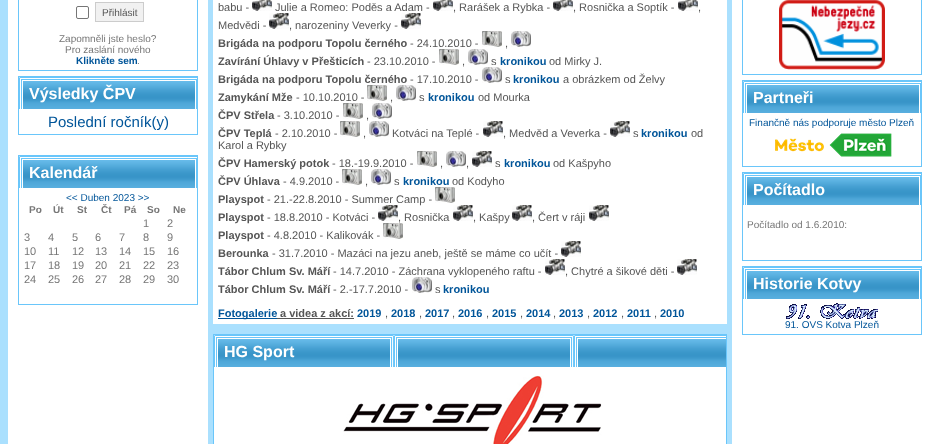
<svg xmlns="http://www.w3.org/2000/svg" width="931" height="444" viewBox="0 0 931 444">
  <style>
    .t1 { font: 10px Liberation Sans; fill: #555; }
    .t2 { font: 10px Liberation Sans; fill: #777; }
    .t3 { font: bold 10px Liberation Sans; fill: #059; }
    .t4 { font: bold 16px Liberation Sans; fill: #fff; }
    .t5 { font: 15px Liberation Sans; fill: #059; }
    .t6 { font: 10px Liberation Sans; fill: #059; }
    .t7 { font: bold 10px Liberation Sans; fill: #777; }
    .t8 { font: 11px Liberation Sans; fill: #777; }
    .t9 { font: 11px Liberation Sans; fill: #555; }
    .t10 { font: bold 11px Liberation Sans; fill: #555; }
    .t11 { font: bold 11px Liberation Sans; fill: #059; }
  </style>
  <rect width="100%" height="100%" fill="#aae0fe"/>
  <rect x="8" y="0" width="923" height="444" fill="#fff"/>
  <rect x="18.5" y="-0.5" width="179" height="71" fill="none" stroke="#6ac6fa"/>
  <rect x="76.5" y="6.5" width="12" height="12" rx="1.5" fill="none" stroke="#767676"/>
  <rect x="95.5" y="2.5" width="48" height="19" fill="#f1f1f1" stroke="#ccc"/>
  <text x="102" y="16" class="t1">Přihlásit</text>
  <text x="59" y="42" class="t2">Zapomněli jste heslo?</text>
  <text x="65" y="53" class="t2">Pro zaslání nového</text>
  <text x="76" y="64" class="t3">Klikněte sem</text>
  <text x="137" y="64" class="t2">.</text>
  <rect x="18.5" y="76.5" width="179" height="58" fill="none" stroke="#6ac6fa"/>
  <image x="19" y="77" width="178" height="32" href="images/1.png"/>
  <text x="29" y="99" class="t4">Výsledky ČPV</text>
  <text x="48" y="127" class="t5">Poslední ročník(y)</text>
  <rect x="18.5" y="155.5" width="179" height="149" fill="none" stroke="#6ac6fa"/>
  <image x="19" y="156" width="178" height="32" href="images/1.png"/>
  <text x="29" y="178" class="t4">Kalendář</text>
  <text x="66" y="201" class="t6">&lt;&lt; Duben 2023 &gt;&gt;</text>
  <text x="29" y="213" class="t7">Po</text>
  <text x="53" y="213" class="t7">Út</text>
  <text x="77" y="213" class="t7">St</text>
  <text x="101" y="213" class="t7">Čt</text>
  <text x="124" y="213" class="t7">Pá</text>
  <text x="147" y="213" class="t7">So</text>
  <text x="173" y="213" class="t7">Ne</text>
  <text x="143" y="227" class="t8">1</text>
  <text x="167" y="227" class="t8">2</text>
  <text x="24" y="241" class="t8">3</text>
  <text x="48" y="241" class="t8">4</text>
  <text x="72" y="241" class="t8">5</text>
  <text x="95" y="241" class="t8">6</text>
  <text x="119" y="241" class="t8">7</text>
  <text x="143" y="241" class="t8">8</text>
  <text x="167" y="241" class="t8">9</text>
  <text x="24" y="255" class="t8">10</text>
  <text x="48" y="255" class="t8">11</text>
  <text x="72" y="255" class="t8">12</text>
  <text x="95" y="255" class="t8">13</text>
  <text x="119" y="255" class="t8">14</text>
  <text x="143" y="255" class="t8">15</text>
  <text x="167" y="255" class="t8">16</text>
  <text x="24" y="269" class="t8">17</text>
  <text x="48" y="269" class="t8">18</text>
  <text x="72" y="269" class="t8">19</text>
  <text x="95" y="269" class="t8">20</text>
  <text x="119" y="269" class="t8">21</text>
  <text x="143" y="269" class="t8">22</text>
  <text x="167" y="269" class="t8">23</text>
  <text x="24" y="283" class="t8">24</text>
  <text x="48" y="283" class="t8">25</text>
  <text x="72" y="283" class="t8">26</text>
  <text x="95" y="283" class="t8">27</text>
  <text x="119" y="283" class="t8">28</text>
  <text x="143" y="283" class="t8">29</text>
  <text x="167" y="283" class="t8">30</text>
  <rect x="208" y="0" width="524" height="444" fill="#aae0fe"/>
  <rect x="213" y="0" width="514" height="324" fill="#fff"/>
  <text x="218" y="11" class="t9">babu -</text>
  <image x="252" y="0" width="20" height="11" href="images/2.png"/>
  <text x="275" y="11" class="t9">Julie a Romeo: Poděs a Adam -</text>
  <image x="433" y="0" width="20" height="11" href="images/2.png"/>
  <text x="453" y="11" class="t9">, Rarášek a Rybka -</text>
  <image x="553" y="0" width="20" height="11" href="images/2.png"/>
  <text x="573" y="11" class="t9">, Rosnička a Soptík -</text>
  <image x="678" y="0" width="20" height="11" href="images/2.png"/>
  <text x="698" y="11" class="t9">,</text>
  <text x="218" y="29" class="t9">Medvědi -</text>
  <image x="269" y="13" width="20" height="16" href="images/3.png"/>
  <text x="289" y="29" class="t9">, narozeniny Veverky -</text>
  <image x="401" y="13" width="20" height="16" href="images/3.png"/>
  <text x="218" y="47" class="t10">Brigáda na podporu Topolu černého</text>
  <text x="410" y="47" class="t9">- 24.10.2010 -</text>
  <image x="482" y="31" width="20" height="16" href="images/4.png"/>
  <text x="505" y="47" class="t9">,</text>
  <image x="511" y="31" width="20" height="16" href="images/5.png"/>
  <text x="218" y="65" class="t10">Zavírání Úhlavy v Přešticích</text>
  <text x="367" y="65" class="t9">- 23.10.2010 -</text>
  <image x="439" y="49" width="20" height="16" href="images/4.png"/>
  <text x="462" y="65" class="t9">,</text>
  <image x="468" y="49" width="20" height="16" href="images/5.png"/>
  <text x="491" y="65" class="t9">s</text>
  <text x="500" y="65" class="t11">kronikou</text>
  <text x="549" y="65" class="t9">od Mirky J.</text>
  <text x="218" y="83" class="t10">Brigáda na podporu Topolu černého</text>
  <text x="410" y="83" class="t9">- 17.10.2010 -</text>
  <image x="482" y="67" width="20" height="16" href="images/5.png"/>
  <text x="505" y="83" class="t9">s</text>
  <text x="513" y="83" class="t11">kronikou</text>
  <text x="563" y="83" class="t9">a obrázkem od Želvy</text>
  <text x="218" y="101" class="t10">Zamykání Mže</text>
  <text x="296" y="101" class="t9">- 10.10.2010 -</text>
  <image x="367" y="85" width="20" height="16" href="images/4.png"/>
  <text x="390" y="101" class="t9">,</text>
  <image x="396" y="85" width="20" height="16" href="images/5.png"/>
  <text x="419" y="101" class="t9">s</text>
  <text x="428" y="101" class="t11">kronikou</text>
  <text x="478" y="101" class="t9">od Mourka</text>
  <text x="218" y="119" class="t10">ČPV Střela</text>
  <text x="277" y="119" class="t9">- 3.10.2010 -</text>
  <image x="343" y="103" width="20" height="16" href="images/4.png"/>
  <text x="366" y="119" class="t9">,</text>
  <image x="372" y="103" width="20" height="16" href="images/5.png"/>
  <text x="218" y="137" class="t10">ČPV Teplá</text>
  <text x="275" y="137" class="t9">- 2.10.2010 -</text>
  <image x="340" y="121" width="20" height="16" href="images/4.png"/>
  <text x="363" y="137" class="t9">,</text>
  <image x="369" y="121" width="20" height="16" href="images/5.png"/>
  <text x="392" y="137" class="t9">Kotváci na Teplé -</text>
  <image x="483" y="121" width="20" height="16" href="images/3.png"/>
  <text x="503" y="137" class="t9">, Medvěd a Veverka -</text>
  <image x="610" y="121" width="20" height="16" href="images/3.png"/>
  <text x="633" y="137" class="t9">s</text>
  <text x="641" y="137" class="t11">kronikou</text>
  <text x="691" y="137" class="t9">od</text>
  <text x="218" y="149" class="t9">Karol a Rybky</text>
  <text x="218" y="167" class="t10">ČPV Hamerský potok</text>
  <text x="332" y="167" class="t9">- 18.-19.9.2010 -</text>
  <image x="417" y="151" width="20" height="16" href="images/4.png"/>
  <text x="440" y="167" class="t9">,</text>
  <image x="446" y="151" width="20" height="16" href="images/5.png"/>
  <text x="466" y="167" class="t9">,</text>
  <image x="472" y="151" width="20" height="16" href="images/3.png"/>
  <text x="495" y="167" class="t9">s</text>
  <text x="504" y="167" class="t11">kronikou</text>
  <text x="553" y="167" class="t9">od Kašpyho</text>
  <text x="218" y="185" class="t10">ČPV Úhlava</text>
  <text x="283" y="185" class="t9">- 4.9.2010 -</text>
  <image x="342" y="169" width="20" height="16" href="images/4.png"/>
  <text x="365" y="185" class="t9">,</text>
  <image x="371" y="169" width="20" height="16" href="images/5.png"/>
  <text x="394" y="185" class="t9">s</text>
  <text x="403" y="185" class="t11">kronikou</text>
  <text x="452" y="185" class="t9">od Kodyho</text>
  <text x="218" y="203" class="t10">Playspot</text>
  <text x="267" y="203" class="t9">- 21.-22.8.2010 - Summer Camp -</text>
  <image x="435" y="187" width="20" height="16" href="images/4.png"/>
  <text x="218" y="221" class="t10">Playspot</text>
  <text x="267" y="221" class="t9">- 18.8.2010 - Kotváci -</text>
  <image x="378" y="205" width="20" height="16" href="images/3.png"/>
  <text x="398" y="221" class="t9">, Rosnička</text>
  <image x="453" y="205" width="20" height="16" href="images/3.png"/>
  <text x="473" y="221" class="t9">, Kašpy</text>
  <image x="512" y="205" width="20" height="16" href="images/3.png"/>
  <text x="532" y="221" class="t9">, Čert v ráji</text>
  <image x="589" y="205" width="20" height="16" href="images/3.png"/>
  <text x="218" y="239" class="t10">Playspot</text>
  <text x="267" y="239" class="t9">- 4.8.2010 - Kalikovák -</text>
  <image x="383" y="223" width="20" height="16" href="images/4.png"/>
  <text x="218" y="257" class="t10">Berounka</text>
  <text x="272" y="257" class="t9">- 31.7.2010 - Mazáci na jezu aneb, ještě se máme co učít -</text>
  <image x="561" y="241" width="20" height="16" href="images/3.png"/>
  <text x="218" y="275" class="t10">Tábor Chlum Sv. Máří</text>
  <text x="333" y="275" class="t9">- 14.7.2010 - Záchrana vyklopeného raftu -</text>
  <image x="545" y="259" width="20" height="16" href="images/3.png"/>
  <text x="565" y="275" class="t9">, Chytré a šikové děti -</text>
  <image x="677" y="259" width="20" height="16" href="images/3.png"/>
  <text x="218" y="293" class="t10">Tábor Chlum Sv. Máří</text>
  <text x="333" y="293" class="t9">- 2.-17.7.2010 -</text>
  <image x="412" y="277" width="20" height="16" href="images/5.png"/>
  <text x="435" y="293" class="t9">s</text>
  <text x="443" y="293" class="t11">kronikou</text>
  <rect x="218" y="318" width="59" height="1" fill="#059"/>
  <text x="218" y="317" class="t11">Fotogalerie</text>
  <text x="280" y="317" class="t10">a videa z akcí:</text>
  <rect x="277" y="318" width="77" height="1" fill="#555"/>
  <text x="357" y="317" class="t11">2019</text>
  <text x="385" y="317" class="t9">,</text>
  <text x="391" y="317" class="t11">2018</text>
  <text x="419" y="317" class="t9">,</text>
  <text x="425" y="317" class="t11">2017</text>
  <text x="452" y="317" class="t9">,</text>
  <text x="458" y="317" class="t11">2016</text>
  <text x="486" y="317" class="t9">,</text>
  <text x="492" y="317" class="t11">2015</text>
  <text x="520" y="317" class="t9">,</text>
  <text x="526" y="317" class="t11">2014</text>
  <text x="553" y="317" class="t9">,</text>
  <text x="559" y="317" class="t11">2013</text>
  <text x="587" y="317" class="t9">,</text>
  <text x="593" y="317" class="t11">2012</text>
  <text x="621" y="317" class="t9">,</text>
  <text x="627" y="317" class="t11">2011</text>
  <text x="654" y="317" class="t9">,</text>
  <text x="660" y="317" class="t11">2010</text>
  <rect x="213.5" y="334.5" width="513" height="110" fill="none" stroke="#6ac6fa"/>
  <image x="214" y="335" width="512" height="32" href="images/6.png"/>
  <text x="224" y="357" class="t4">HG Sport</text>
  <rect x="214" y="367" width="512" height="77" fill="#fff"/>
  <image x="343" y="375" width="259" height="69" href="images/7.png"/>
  <rect x="742.5" y="-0.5" width="179" height="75" fill="none" stroke="#6ac6fa"/>
  <image x="779" y="0" width="106" height="70" href="images/8.png"/>
  <rect x="742.5" y="80.5" width="179" height="86" fill="none" stroke="#6ac6fa"/>
  <image x="743" y="81" width="178" height="32" href="images/1.png"/>
  <text x="753" y="103" class="t4">Partneři</text>
  <text x="749" y="126" class="t6">Finančně nás podporuje město Plzeň</text>
  <image x="775" y="133" width="117" height="24" href="images/9.png"/>
  <rect x="742.5" y="172.5" width="179" height="88" fill="none" stroke="#6ac6fa"/>
  <image x="743" y="173" width="178" height="32" href="images/1.png"/>
  <text x="753" y="195" class="t4">Počítadlo</text>
  <text x="747" y="228" class="t2">Počítadlo od 1.6.2010:</text>
  <rect x="742.5" y="266.5" width="179" height="68" fill="none" stroke="#6ac6fa"/>
  <image x="743" y="267" width="178" height="32" href="images/1.png"/>
  <text x="753" y="289" class="t4">Historie Kotvy</text>
  <image x="786" y="303" width="92" height="16" href="images/10.png"/>
  <text x="785" y="328" class="t6">91. OVS Kotva Plzeň</text>
</svg>
